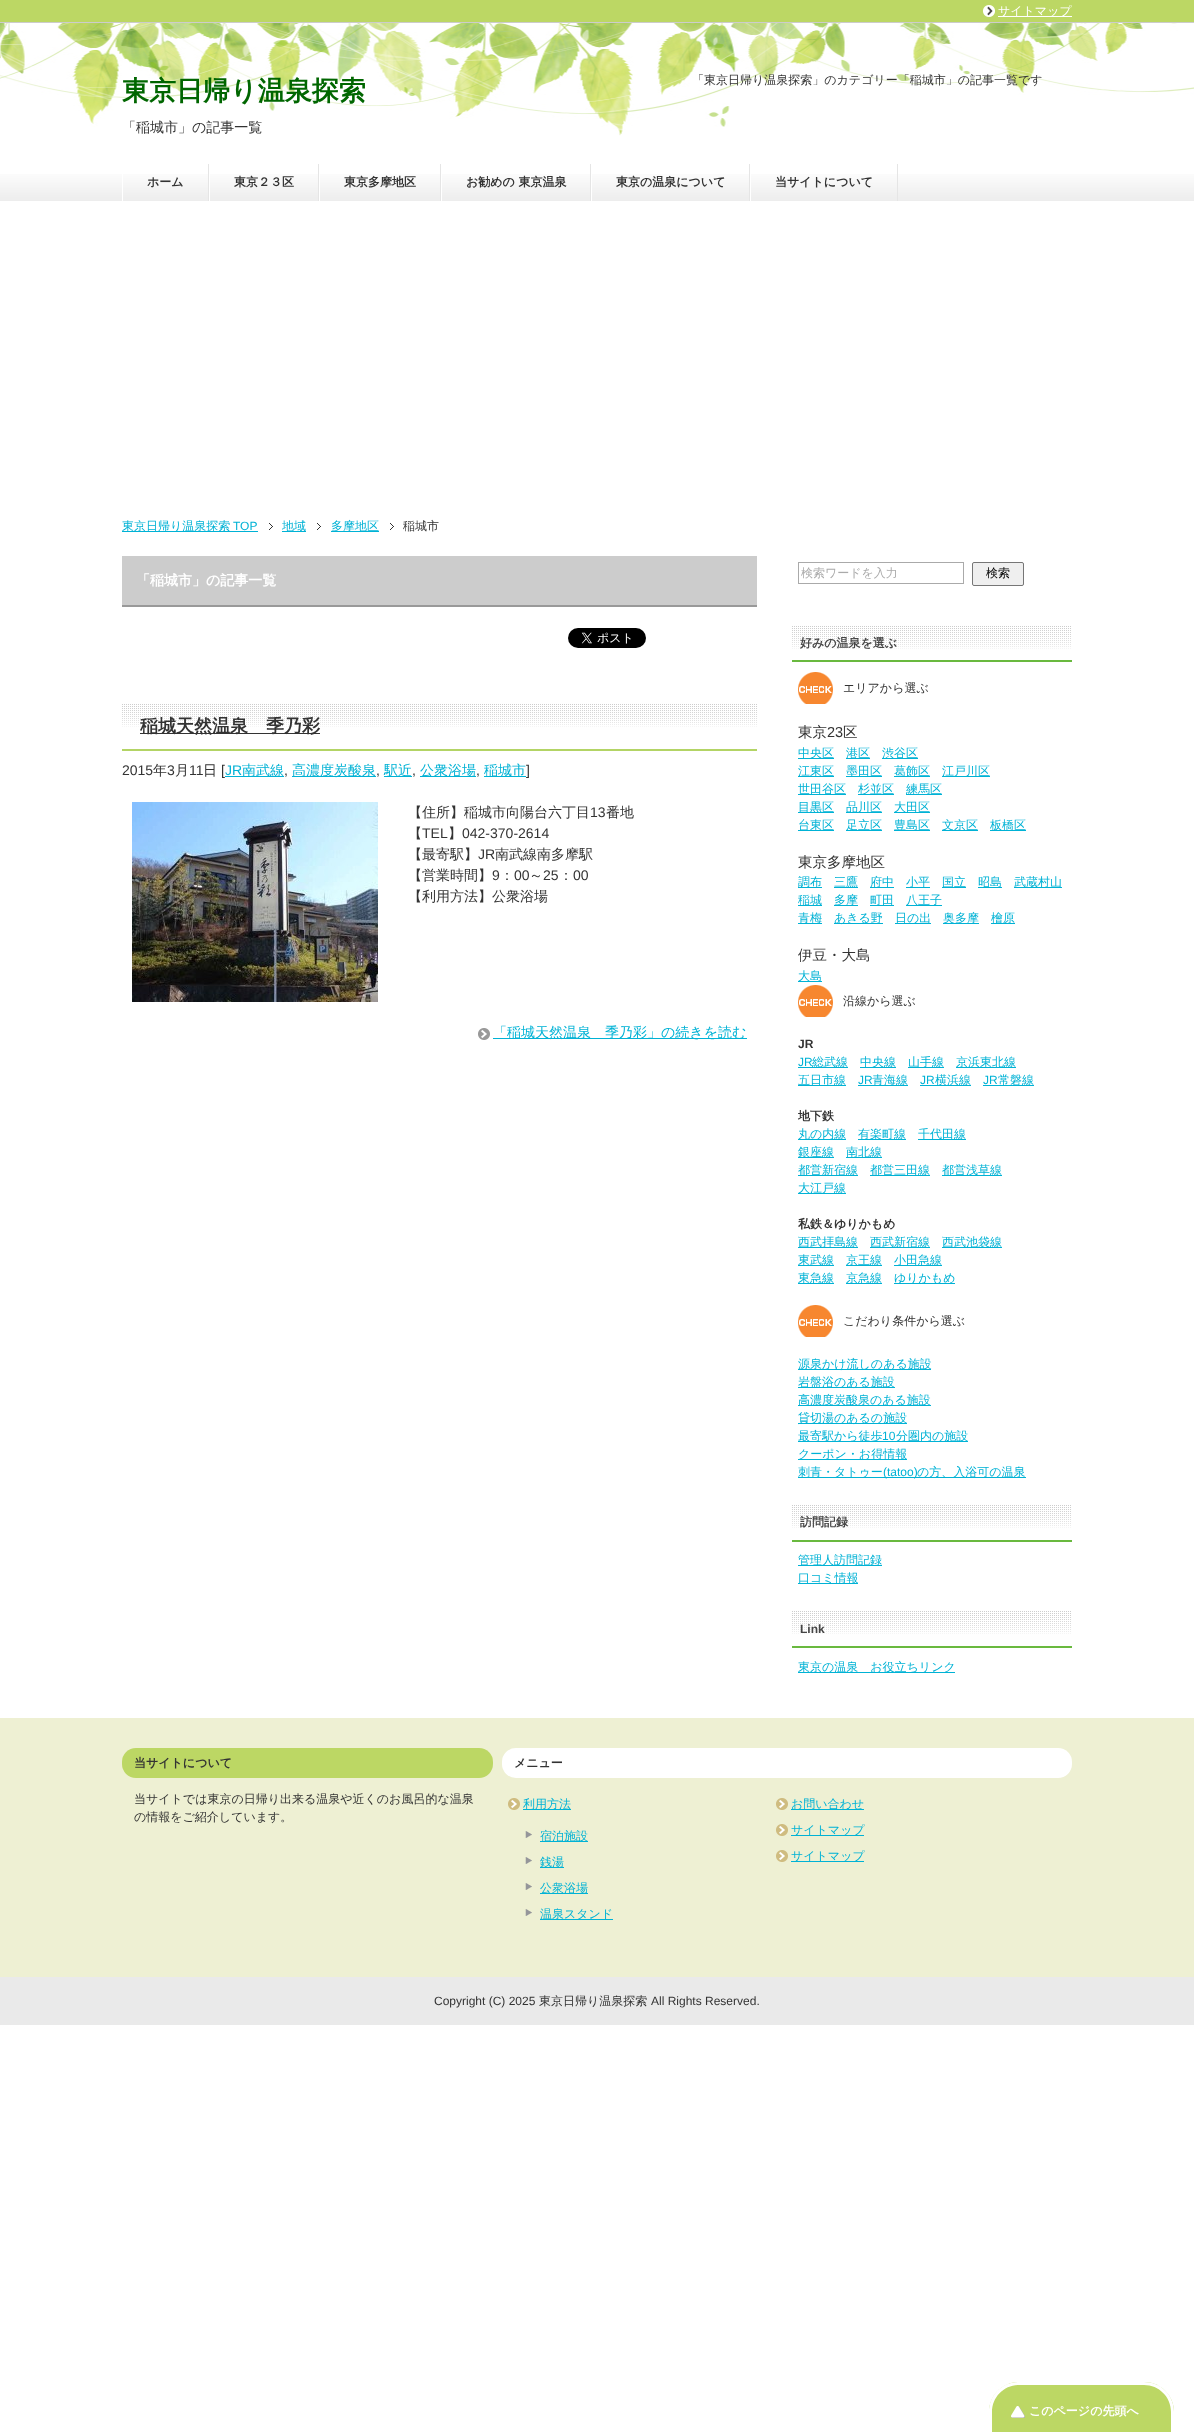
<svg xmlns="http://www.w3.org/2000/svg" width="1194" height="2432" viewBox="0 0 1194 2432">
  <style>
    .t1 { font: 500 12px WenQuanYi Zen Hei; fill: #fff; }
    .t2 { font: bold 27px WenQuanYi Zen Hei; fill: #060; }
    .t3 { font: 500 14px WenQuanYi Zen Hei; fill: #333; }
    .t4 { font: 500 12px WenQuanYi Zen Hei; fill: #333; }
    .t5 { font: bold 12px WenQuanYi Zen Hei; fill: #333; }
    .t6 { font: 500 12px WenQuanYi Zen Hei; fill: #00b2d5; }
    .t7 { font: 12px Liberation Sans; fill: #00b2d5; }
    .t8 { font: bold 14px WenQuanYi Zen Hei; fill: #fff; }
    .t9 { font: bold 18px WenQuanYi Zen Hei; fill: #333; }
    .t10 { font: 14px Liberation Sans; fill: #333; }
    .t11 { font: 14px Liberation Sans; fill: #00b2d5; }
    .t12 { font: 500 14px WenQuanYi Zen Hei; fill: #00b2d5; }
    .t13 { font: 500 12px WenQuanYi Zen Hei; fill: #aaa; }
    .t14 { font: 500 12px WenQuanYi Zen Hei; fill: #000; }
    .t15 { font: bold 12px WenQuanYi Zen Hei; fill: #454545; }
    .t16 { font: 500 14.5px WenQuanYi Zen Hei; fill: #333; }
    .t17 { font: 14.5px Liberation Sans; fill: #333; }
    .t18 { font: bold 12px Liberation Sans; fill: #333; }
    .t19 { font: bold 12px Liberation Sans; fill: #454545; }
    .t20 { font: 12px Liberation Sans; fill: #333; }
    .t21 { font: bold 12px WenQuanYi Zen Hei; fill: #fff; }
  </style>
  <rect width="100%" height="100%" fill="#fff"/>
  <rect x="0" y="0" width="1194" height="22" fill="#bcd764"/>
  <rect x="0" y="22" width="1194" height="1" fill="#ccc"/>
  <image x="983" y="5" width="12" height="12" href="images/1.png"/>
  <rect x="998" y="16" width="74" height="1" fill="#fff"/>
  <text x="998" y="15" class="t1">サイトマップ</text>
  <image x="0" y="23" width="1194" height="113" href="images/2.png"/>
  <text x="122" y="100" class="t2">東京日帰り温泉探索</text>
  <text x="122" y="132" class="t3">「稲城市」の記事一覧</text>
  <text x="692" y="84" class="t4">「東京日帰り温泉探索」のカテゴリー「稲城市」の記事一覧です</text>
  <image x="0" y="174" width="1194" height="27" href="images/3.png"/>
  <rect x="208" y="164" width="1" height="37" fill="#e5e5e5"/>
  <rect x="122" y="174" width="1" height="27" fill="#fff"/>
  <text x="147" y="186" class="t5">ホーム</text>
  <rect x="318" y="164" width="1" height="37" fill="#e5e5e5"/>
  <rect x="209" y="174" width="1" height="27" fill="#fff"/>
  <text x="234" y="186" class="t5">東京２３区</text>
  <rect x="440" y="164" width="1" height="37" fill="#e5e5e5"/>
  <rect x="319" y="174" width="1" height="27" fill="#fff"/>
  <text x="344" y="186" class="t5">東京多摩地区</text>
  <rect x="590" y="164" width="1" height="37" fill="#e5e5e5"/>
  <rect x="441" y="174" width="1" height="27" fill="#fff"/>
  <text x="466" y="186" class="t5">お勧めの 東京温泉</text>
  <rect x="749" y="164" width="1" height="37" fill="#e5e5e5"/>
  <rect x="591" y="174" width="1" height="27" fill="#fff"/>
  <text x="616" y="186" class="t5">東京の温泉について</text>
  <rect x="897" y="164" width="1" height="37" fill="#e5e5e5"/>
  <rect x="750" y="174" width="1" height="27" fill="#fff"/>
  <text x="775" y="186" class="t5">当サイトについて</text>
  <rect x="122" y="531" width="136" height="1" fill="#00b2d5"/>
  <text x="122" y="530" class="t6">東京日帰り温泉探索</text>
  <text x="233" y="530" class="t7">TOP</text>
  <image x="269" y="523" width="4" height="7" href="images/4.png"/>
  <rect x="282" y="531" width="24" height="1" fill="#00b2d5"/>
  <text x="282" y="530" class="t6">地域</text>
  <image x="317" y="523" width="4" height="7" href="images/4.png"/>
  <rect x="331" y="531" width="48" height="1" fill="#00b2d5"/>
  <text x="331" y="530" class="t6">多摩地区</text>
  <image x="390" y="523" width="4" height="7" href="images/4.png"/>
  <text x="403" y="530" class="t4">稲城市</text>
  <rect x="122" y="556" width="635" height="49" fill="#ccc"/>
  <rect x="122" y="605" width="635" height="2" fill="#999"/>
  <text x="136" y="585" class="t8">「稲城市」の記事一覧</text>
  <image x="568" y="628" width="78" height="20" href="images/5.png"/>
  <image x="122" y="704" width="635" height="23" href="images/6.png"/>
  <rect x="122" y="749" width="635" height="2" fill="#b3d465"/>
  <rect x="140" y="733" width="180" height="1" fill="#333"/>
  <text x="140" y="732" class="t9">稲城天然温泉　季乃彩</text>
  <text x="122" y="775" class="t10">2015</text>
  <text x="153" y="775" class="t3">年</text>
  <text x="167" y="775" class="t10">3</text>
  <text x="175" y="775" class="t3">月</text>
  <text x="189" y="775" class="t10">11</text>
  <text x="203" y="775" class="t3">日</text>
  <text x="221" y="775" class="t10">[</text>
  <text x="225" y="775" class="t11">JR</text>
  <rect x="225" y="776" width="59" height="1" fill="#00b2d5"/>
  <text x="242" y="775" class="t12">南武線</text>
  <text x="284" y="775" class="t10">,</text>
  <rect x="292" y="776" width="84" height="1" fill="#00b2d5"/>
  <text x="292" y="775" class="t12">高濃度炭酸泉</text>
  <text x="376" y="775" class="t10">,</text>
  <rect x="384" y="776" width="28" height="1" fill="#00b2d5"/>
  <text x="384" y="775" class="t12">駅近</text>
  <text x="412" y="775" class="t10">,</text>
  <rect x="420" y="776" width="56" height="1" fill="#00b2d5"/>
  <text x="420" y="775" class="t12">公衆浴場</text>
  <text x="476" y="775" class="t10">,</text>
  <rect x="484" y="776" width="42" height="1" fill="#00b2d5"/>
  <text x="484" y="775" class="t12">稲城市</text>
  <text x="526" y="775" class="t10">]</text>
  <image x="132" y="802" width="246" height="200" href="images/7.png"/>
  <text x="408" y="817" class="t3">【住所】稲城市向陽台六丁目</text>
  <text x="590" y="817" class="t10">13</text>
  <text x="606" y="817" class="t3">番地</text>
  <text x="408" y="838" class="t3">【</text>
  <text x="422" y="838" class="t10">TEL</text>
  <text x="448" y="838" class="t3">】</text>
  <text x="462" y="838" class="t10">042-370-2614</text>
  <text x="408" y="859" class="t3">【最寄駅】</text>
  <text x="478" y="859" class="t10">JR</text>
  <text x="495" y="859" class="t3">南武線南多摩駅</text>
  <text x="408" y="880" class="t3">【営業時間】</text>
  <text x="492" y="880" class="t10">9</text>
  <text x="500" y="880" class="t3">：</text>
  <text x="514" y="880" class="t10">00</text>
  <text x="529" y="880" class="t3">～</text>
  <text x="543" y="880" class="t10">25</text>
  <text x="559" y="880" class="t3">：</text>
  <text x="573" y="880" class="t10">00</text>
  <text x="408" y="901" class="t3">【利用方法】公衆浴場</text>
  <image x="478" y="1028" width="12" height="12" href="images/8.png"/>
  <rect x="493" y="1038" width="254" height="1" fill="#00b2d5"/>
  <text x="493" y="1037" class="t12">「稲城天然温泉　季乃彩」の続きを読む</text>
  <rect x="798.5" y="562.5" width="165" height="21" fill="none" stroke="#aaa"/>
  <text x="801" y="577" class="t13">検索ワードを入力</text>
  <rect x="972.5" y="562.5" width="51" height="23" rx="1.5" fill="#efefef" stroke="#767676"/>
  <text x="986" y="577" class="t14">検索</text>
  <image x="792" y="626" width="279" height="23" href="images/9.png"/>
  <rect x="792" y="660" width="280" height="2" fill="#69b93f"/>
  <text x="800" y="647" class="t15">好みの温泉を選ぶ</text>
  <image x="798" y="672" width="35" height="32" href="images/10.png"/>
  <text x="843" y="692" class="t4">エリアから選ぶ</text>
  <text x="798" y="737" class="t16">東京</text>
  <text x="827" y="737" class="t17">23</text>
  <text x="843" y="737" class="t16">区</text>
  <rect x="798" y="758" width="36" height="1" fill="#00b2d5"/>
  <text x="798" y="757" class="t6">中央区</text>
  <rect x="846" y="758" width="24" height="1" fill="#00b2d5"/>
  <text x="846" y="757" class="t6">港区</text>
  <rect x="882" y="758" width="36" height="1" fill="#00b2d5"/>
  <text x="882" y="757" class="t6">渋谷区</text>
  <rect x="798" y="776" width="36" height="1" fill="#00b2d5"/>
  <text x="798" y="775" class="t6">江東区</text>
  <rect x="846" y="776" width="36" height="1" fill="#00b2d5"/>
  <text x="846" y="775" class="t6">墨田区</text>
  <rect x="894" y="776" width="36" height="1" fill="#00b2d5"/>
  <text x="894" y="775" class="t6">葛飾区</text>
  <rect x="942" y="776" width="48" height="1" fill="#00b2d5"/>
  <text x="942" y="775" class="t6">江戸川区</text>
  <rect x="798" y="794" width="48" height="1" fill="#00b2d5"/>
  <text x="798" y="793" class="t6">世田谷区</text>
  <rect x="858" y="794" width="36" height="1" fill="#00b2d5"/>
  <text x="858" y="793" class="t6">杉並区</text>
  <rect x="906" y="794" width="36" height="1" fill="#00b2d5"/>
  <text x="906" y="793" class="t6">練馬区</text>
  <rect x="798" y="812" width="36" height="1" fill="#00b2d5"/>
  <text x="798" y="811" class="t6">目黒区</text>
  <rect x="846" y="812" width="36" height="1" fill="#00b2d5"/>
  <text x="846" y="811" class="t6">品川区</text>
  <rect x="894" y="812" width="36" height="1" fill="#00b2d5"/>
  <text x="894" y="811" class="t6">大田区</text>
  <rect x="798" y="830" width="36" height="1" fill="#00b2d5"/>
  <text x="798" y="829" class="t6">台東区</text>
  <rect x="846" y="830" width="36" height="1" fill="#00b2d5"/>
  <text x="846" y="829" class="t6">足立区</text>
  <rect x="894" y="830" width="36" height="1" fill="#00b2d5"/>
  <text x="894" y="829" class="t6">豊島区</text>
  <rect x="942" y="830" width="36" height="1" fill="#00b2d5"/>
  <text x="942" y="829" class="t6">文京区</text>
  <rect x="990" y="830" width="36" height="1" fill="#00b2d5"/>
  <text x="990" y="829" class="t6">板橋区</text>
  <text x="798" y="867" class="t16">東京多摩地区</text>
  <rect x="798" y="887" width="24" height="1" fill="#00b2d5"/>
  <text x="798" y="886" class="t6">調布</text>
  <rect x="834" y="887" width="24" height="1" fill="#00b2d5"/>
  <text x="834" y="886" class="t6">三鷹</text>
  <rect x="870" y="887" width="24" height="1" fill="#00b2d5"/>
  <text x="870" y="886" class="t6">府中</text>
  <rect x="906" y="887" width="24" height="1" fill="#00b2d5"/>
  <text x="906" y="886" class="t6">小平</text>
  <rect x="942" y="887" width="24" height="1" fill="#00b2d5"/>
  <text x="942" y="886" class="t6">国立</text>
  <rect x="978" y="887" width="24" height="1" fill="#00b2d5"/>
  <text x="978" y="886" class="t6">昭島</text>
  <rect x="1014" y="887" width="48" height="1" fill="#00b2d5"/>
  <text x="1014" y="886" class="t6">武蔵村山</text>
  <rect x="798" y="905" width="24" height="1" fill="#00b2d5"/>
  <text x="798" y="904" class="t6">稲城</text>
  <rect x="834" y="905" width="24" height="1" fill="#00b2d5"/>
  <text x="834" y="904" class="t6">多摩</text>
  <rect x="870" y="905" width="24" height="1" fill="#00b2d5"/>
  <text x="870" y="904" class="t6">町田</text>
  <rect x="906" y="905" width="36" height="1" fill="#00b2d5"/>
  <text x="906" y="904" class="t6">八王子</text>
  <rect x="798" y="923" width="24" height="1" fill="#00b2d5"/>
  <text x="798" y="922" class="t6">青梅</text>
  <rect x="834" y="923" width="49" height="1" fill="#00b2d5"/>
  <text x="834" y="922" class="t6">あきる野</text>
  <rect x="895" y="923" width="36" height="1" fill="#00b2d5"/>
  <text x="895" y="922" class="t6">日の出</text>
  <rect x="943" y="923" width="36" height="1" fill="#00b2d5"/>
  <text x="943" y="922" class="t6">奥多摩</text>
  <rect x="991" y="923" width="24" height="1" fill="#00b2d5"/>
  <text x="991" y="922" class="t6">檜原</text>
  <text x="798" y="960" class="t16">伊豆・大島</text>
  <rect x="798" y="981" width="24" height="1" fill="#00b2d5"/>
  <text x="798" y="980" class="t6">大島</text>
  <image x="798" y="985" width="35" height="32" href="images/10.png"/>
  <text x="843" y="1005" class="t4">沿線から選ぶ</text>
  <text x="798" y="1048" class="t18">JR</text>
  <text x="798" y="1066" class="t7">JR</text>
  <rect x="798" y="1067" width="50" height="1" fill="#00b2d5"/>
  <text x="812" y="1066" class="t6">総武線</text>
  <rect x="860" y="1067" width="36" height="1" fill="#00b2d5"/>
  <text x="860" y="1066" class="t6">中央線</text>
  <rect x="908" y="1067" width="36" height="1" fill="#00b2d5"/>
  <text x="908" y="1066" class="t6">山手線</text>
  <rect x="956" y="1067" width="60" height="1" fill="#00b2d5"/>
  <text x="956" y="1066" class="t6">京浜東北線</text>
  <rect x="798" y="1085" width="48" height="1" fill="#00b2d5"/>
  <text x="798" y="1084" class="t6">五日市線</text>
  <text x="858" y="1084" class="t7">JR</text>
  <rect x="858" y="1085" width="50" height="1" fill="#00b2d5"/>
  <text x="872" y="1084" class="t6">青海線</text>
  <text x="920" y="1084" class="t7">JR</text>
  <rect x="920" y="1085" width="51" height="1" fill="#00b2d5"/>
  <text x="935" y="1084" class="t6">横浜線</text>
  <text x="983" y="1084" class="t7">JR</text>
  <rect x="983" y="1085" width="51" height="1" fill="#00b2d5"/>
  <text x="998" y="1084" class="t6">常磐線</text>
  <text x="798" y="1120" class="t5">地下鉄</text>
  <rect x="798" y="1139" width="48" height="1" fill="#00b2d5"/>
  <text x="798" y="1138" class="t6">丸の内線</text>
  <rect x="858" y="1139" width="48" height="1" fill="#00b2d5"/>
  <text x="858" y="1138" class="t6">有楽町線</text>
  <rect x="918" y="1139" width="48" height="1" fill="#00b2d5"/>
  <text x="918" y="1138" class="t6">千代田線</text>
  <rect x="798" y="1157" width="36" height="1" fill="#00b2d5"/>
  <text x="798" y="1156" class="t6">銀座線</text>
  <rect x="846" y="1157" width="36" height="1" fill="#00b2d5"/>
  <text x="846" y="1156" class="t6">南北線</text>
  <rect x="798" y="1175" width="60" height="1" fill="#00b2d5"/>
  <text x="798" y="1174" class="t6">都営新宿線</text>
  <rect x="870" y="1175" width="60" height="1" fill="#00b2d5"/>
  <text x="870" y="1174" class="t6">都営三田線</text>
  <rect x="942" y="1175" width="60" height="1" fill="#00b2d5"/>
  <text x="942" y="1174" class="t6">都営浅草線</text>
  <rect x="798" y="1193" width="48" height="1" fill="#00b2d5"/>
  <text x="798" y="1192" class="t6">大江戸線</text>
  <text x="798" y="1228" class="t5">私鉄＆ゆりかもめ</text>
  <rect x="798" y="1247" width="60" height="1" fill="#00b2d5"/>
  <text x="798" y="1246" class="t6">西武拝島線</text>
  <rect x="870" y="1247" width="60" height="1" fill="#00b2d5"/>
  <text x="870" y="1246" class="t6">西武新宿線</text>
  <rect x="942" y="1247" width="60" height="1" fill="#00b2d5"/>
  <text x="942" y="1246" class="t6">西武池袋線</text>
  <rect x="798" y="1265" width="36" height="1" fill="#00b2d5"/>
  <text x="798" y="1264" class="t6">東武線</text>
  <rect x="846" y="1265" width="36" height="1" fill="#00b2d5"/>
  <text x="846" y="1264" class="t6">京王線</text>
  <rect x="894" y="1265" width="48" height="1" fill="#00b2d5"/>
  <text x="894" y="1264" class="t6">小田急線</text>
  <rect x="798" y="1283" width="36" height="1" fill="#00b2d5"/>
  <text x="798" y="1282" class="t6">東急線</text>
  <rect x="846" y="1283" width="36" height="1" fill="#00b2d5"/>
  <text x="846" y="1282" class="t6">京急線</text>
  <rect x="894" y="1283" width="61" height="1" fill="#00b2d5"/>
  <text x="894" y="1282" class="t6">ゆりかもめ</text>
  <image x="798" y="1305" width="35" height="32" href="images/10.png"/>
  <text x="843" y="1325" class="t4">こだわり条件から選ぶ</text>
  <rect x="798" y="1369" width="133" height="1" fill="#00b2d5"/>
  <text x="798" y="1368" class="t6">源泉かけ流しのある施設</text>
  <rect x="798" y="1387" width="97" height="1" fill="#00b2d5"/>
  <text x="798" y="1386" class="t6">岩盤浴のある施設</text>
  <rect x="798" y="1405" width="133" height="1" fill="#00b2d5"/>
  <text x="798" y="1404" class="t6">高濃度炭酸泉のある施設</text>
  <rect x="798" y="1423" width="109" height="1" fill="#00b2d5"/>
  <text x="798" y="1422" class="t6">貸切湯のあるの施設</text>
  <rect x="798" y="1441" width="170" height="1" fill="#00b2d5"/>
  <text x="798" y="1440" class="t6">最寄駅から徒歩</text>
  <text x="882" y="1440" class="t7">10</text>
  <text x="896" y="1440" class="t6">分圏内の施設</text>
  <rect x="798" y="1459" width="109" height="1" fill="#00b2d5"/>
  <text x="798" y="1458" class="t6">クーポン・お得情報</text>
  <rect x="798" y="1477" width="228" height="1" fill="#00b2d5"/>
  <text x="798" y="1476" class="t6">刺青・タトゥー</text>
  <text x="883" y="1476" class="t7">(tatoo)</text>
  <text x="917" y="1476" class="t6">の方、入浴可の温泉</text>
  <image x="792" y="1505" width="279" height="23" href="images/9.png"/>
  <rect x="792" y="1540" width="280" height="2" fill="#69b93f"/>
  <text x="800" y="1526" class="t15">訪問記録</text>
  <rect x="798" y="1565" width="84" height="1" fill="#00b2d5"/>
  <text x="798" y="1564" class="t6">管理人訪問記録</text>
  <rect x="798" y="1583" width="60" height="1" fill="#00b2d5"/>
  <text x="798" y="1582" class="t6">口コミ情報</text>
  <image x="792" y="1611" width="279" height="23" href="images/9.png"/>
  <rect x="792" y="1646" width="280" height="2" fill="#69b93f"/>
  <text x="800" y="1633" class="t19">Link</text>
  <rect x="798" y="1672" width="157" height="1" fill="#00b2d5"/>
  <text x="798" y="1671" class="t6">東京の温泉　お役立ちリンク</text>
  <rect x="0" y="1718" width="1194" height="259" fill="#eef0d3"/>
  <rect x="122" y="1748" width="371" height="30" rx="14" fill="#bcd764"/>
  <text x="134" y="1767" class="t5">当サイトについて</text>
  <text x="134" y="1803" class="t4">当サイトでは東京の日帰り出来る温泉や近くのお風呂的な温泉</text>
  <text x="134" y="1821" class="t4">の情報をご紹介しています。</text>
  <rect x="502" y="1748" width="570" height="30" rx="14" fill="#fff"/>
  <text x="514" y="1767" class="t5">メニュー</text>
  <image x="508" y="1798" width="12" height="12" href="images/11.png"/>
  <rect x="523" y="1809" width="48" height="1" fill="#00b2d5"/>
  <text x="523" y="1808" class="t6">利用方法</text>
  <image x="525" y="1831" width="7" height="7" href="images/12.png"/>
  <rect x="540" y="1841" width="48" height="1" fill="#00b2d5"/>
  <text x="540" y="1840" class="t6">宿泊施設</text>
  <image x="525" y="1857" width="7" height="7" href="images/12.png"/>
  <rect x="540" y="1867" width="24" height="1" fill="#00b2d5"/>
  <text x="540" y="1866" class="t6">銭湯</text>
  <image x="525" y="1883" width="7" height="7" href="images/12.png"/>
  <rect x="540" y="1893" width="48" height="1" fill="#00b2d5"/>
  <text x="540" y="1892" class="t6">公衆浴場</text>
  <image x="525" y="1909" width="7" height="7" href="images/12.png"/>
  <rect x="540" y="1919" width="73" height="1" fill="#00b2d5"/>
  <text x="540" y="1918" class="t6">温泉スタンド</text>
  <image x="776" y="1798" width="12" height="12" href="images/11.png"/>
  <rect x="791" y="1809" width="73" height="1" fill="#00b2d5"/>
  <text x="791" y="1808" class="t6">お問い合わせ</text>
  <image x="776" y="1824" width="12" height="12" href="images/11.png"/>
  <rect x="791" y="1835" width="73" height="1" fill="#00b2d5"/>
  <text x="791" y="1834" class="t6">サイトマップ</text>
  <image x="776" y="1850" width="12" height="12" href="images/11.png"/>
  <rect x="791" y="1861" width="73" height="1" fill="#00b2d5"/>
  <text x="791" y="1860" class="t6">サイトマップ</text>
  <rect x="0" y="1977" width="1194" height="48" fill="#eaeaea"/>
  <text x="434" y="2005" class="t20">Copyright (C) 2025</text>
  <text x="539" y="2005" class="t4">東京日帰り温泉探索</text>
  <text x="651" y="2005" class="t20">All Rights Reserved.</text>
  <path d="M1019 2382H1144C1160.5 2382 1174 2395.5 1174 2412V2432H989V2412C989 2395.5 1002.5 2382 1019 2382Z" fill="#bcd764"/>
  <image x="1011" y="2406" width="14" height="12" href="images/13.png"/>
  <path d="M1019 2382H1144C1161 2382 1174 2395 1174 2412V2432H989V2412C989 2395 1002 2382 1019 2382ZM1019 2385H1144C1159 2385 1171 2397 1171 2412V2432H992V2412C992 2397 1004 2385 1019 2385Z" fill="#fff" fill-rule="evenodd"/>
  <text x="1029" y="2415" class="t21">このページの先頭へ</text>
</svg>
